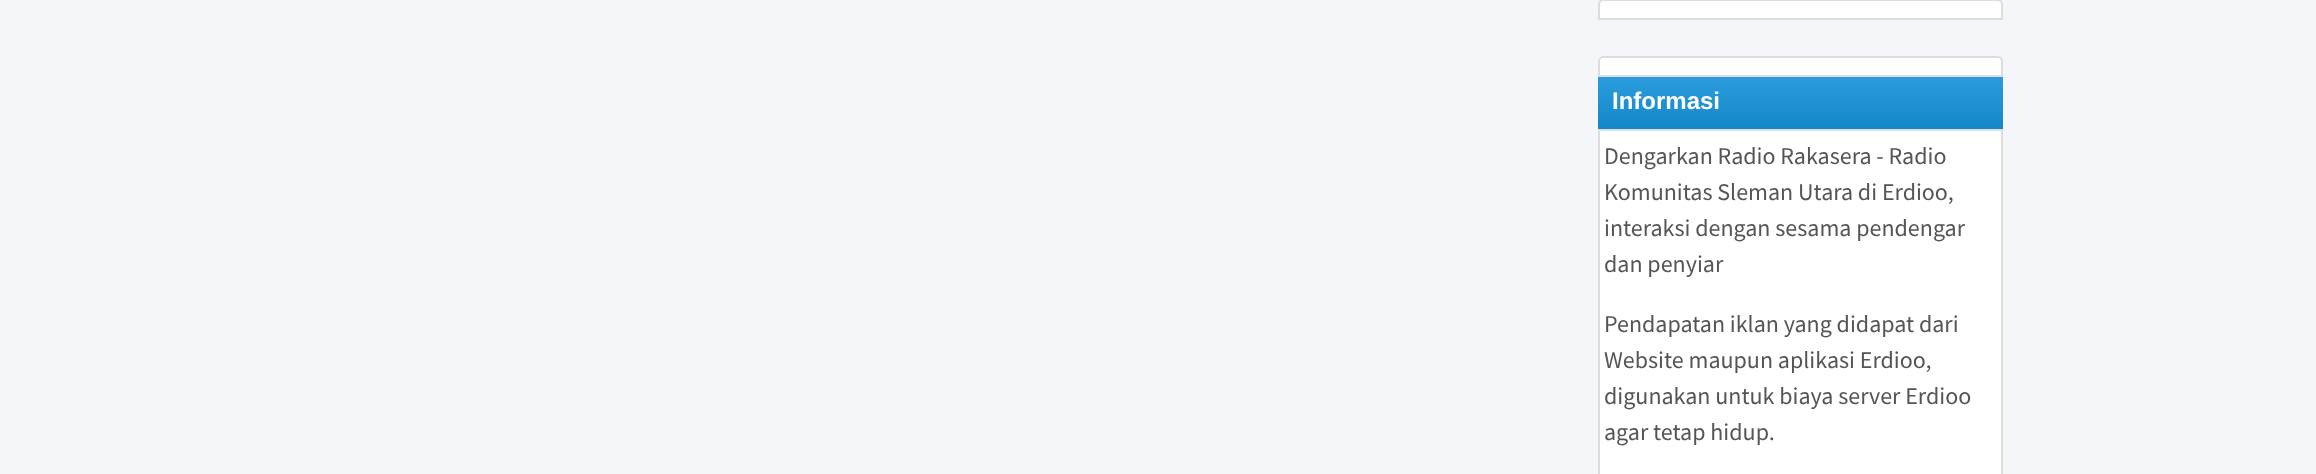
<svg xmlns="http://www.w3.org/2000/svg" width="2316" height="474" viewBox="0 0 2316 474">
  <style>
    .t1 { font: bold 24px Liberation Sans; fill: #fff; }
    .t2 { font: 24px Source Sans Pro; fill: #555; }
  </style>
  <defs>
    <linearGradient id="g1" gradientUnits="userSpaceOnUse" x1="1800" y1="76" x2="1800" y2="129"><stop offset="0" stop-color="#2b9dde"/><stop offset="1" stop-color="#1487c9"/></linearGradient>
  </defs>
  <rect width="100%" height="100%" fill="#f4f6f9"/>
  <path d="M1603 0H1998C2000 0 2002 2 2002 4V19H1599V4C1599 2 1601 0 1603 0Z" fill="#fff" stroke="#ddd" stroke-width="2"/>
  <path d="M1603 57H1998C2000 57 2002 59 2002 61V76H1599V61C1599 59 1601 57 1603 57Z" fill="#fff" stroke="#ddd" stroke-width="2"/>
  <rect x="1598" y="77" width="405" height="52" fill="url(#g1)"/>
  <text x="1612" y="109" class="t1">Informasi</text>
  <rect x="1599" y="130" width="403" height="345" fill="#fff" stroke="#ddd" stroke-width="2"/>
  <text x="1604" y="164" class="t2">Dengarkan Radio Rakasera - Radio</text>
  <text x="1604" y="200" class="t2">Komunitas Sleman Utara di Erdioo,</text>
  <text x="1604" y="236" class="t2">interaksi dengan sesama pendengar</text>
  <text x="1604" y="272" class="t2">dan penyiar</text>
  <text x="1604" y="332" class="t2">Pendapatan iklan yang didapat dari</text>
  <text x="1604" y="368" class="t2">Website maupun aplikasi Erdioo,</text>
  <text x="1604" y="404" class="t2">digunakan untuk biaya server Erdioo</text>
  <text x="1604" y="440" class="t2">agar tetap hidup.</text>
</svg>
